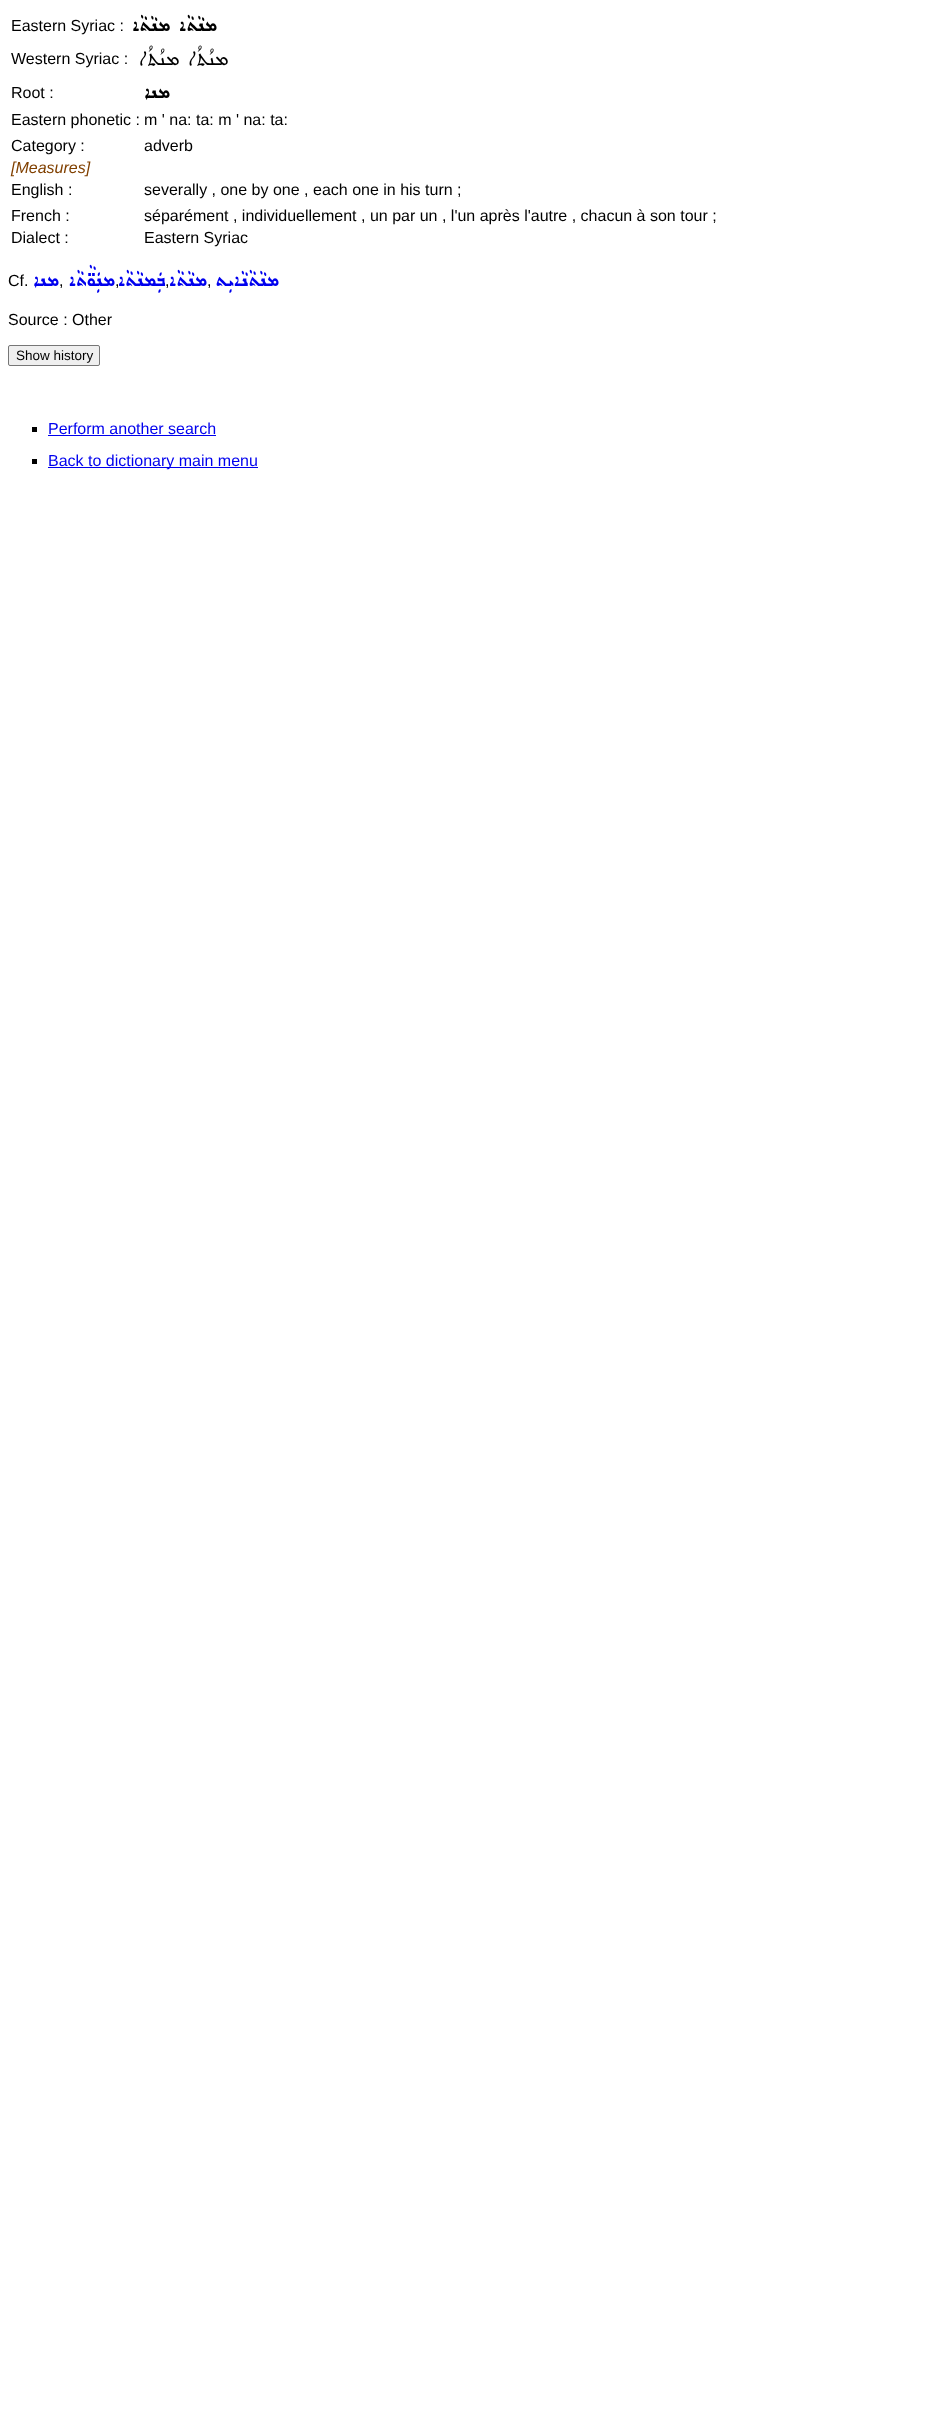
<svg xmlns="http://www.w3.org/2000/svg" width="926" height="2420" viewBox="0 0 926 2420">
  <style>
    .t1 { font: 16px Liberation Sans; fill: #000; }
    .t2 { font: 25.5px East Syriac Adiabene; direction: rtl; fill: #000; }
    .t3 { font: 27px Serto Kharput; direction: rtl; fill: #000; }
    .t4 { font: italic 16px Liberation Sans; fill: #804000; }
    .t5 { font: 25.5px East Syriac Adiabene; direction: rtl; fill: #00e; }
    .t6 { font: 13.5px Liberation Sans; fill: #000; }
    .t7 { font: 16px Liberation Sans; fill: #00e; }
  </style>
  <rect width="100%" height="100%" fill="#fff"/>
  <text x="11" y="31" class="t1">Eastern Syriac :</text>
  <text x="217" y="31" class="t2">ܡܢܵܬܵܐ ܡܢܵܬܵܐ</text>
  <text x="11" y="64" class="t1">Western Syriac :</text>
  <text x="228" y="65" class="t3">ܡܢܳܬܳܐ ܡܢܳܬܳܐ</text>
  <text x="11" y="98" class="t1">Root :</text>
  <text x="170" y="98" class="t2">ܡܢܐ</text>
  <text x="11" y="125" class="t1">Eastern phonetic :</text>
  <text x="144" y="125" class="t1">m ' na: ta: m ' na: ta:</text>
  <text x="11" y="151" class="t1">Category :</text>
  <text x="144" y="151" class="t1">adverb</text>
  <text x="11" y="173" class="t4">[Measures]</text>
  <text x="11" y="195" class="t1">English :</text>
  <text x="144" y="195" class="t1">severally , one by one , each one in his turn ;</text>
  <text x="11" y="221" class="t1">French :</text>
  <text x="144" y="221" class="t1">séparément , individuellement , un par un , l'un après l'autre , chacun à son tour ;</text>
  <text x="11" y="243" class="t1">Dialect :</text>
  <text x="144" y="243" class="t1">Eastern Syriac</text>
  <text x="8" y="286" class="t1">Cf.</text>
  <text x="59" y="286" class="t5">ܡܢܐ</text>
  <text x="59" y="286" class="t1">,</text>
  <text x="115" y="286" class="t5">ܡܢܲܘ̈ܵܬܵܐ</text>
  <text x="115" y="286" class="t1">,</text>
  <text x="165" y="286" class="t5">ܒܲܡܢܵܬܵܐ</text>
  <text x="165" y="286" class="t1">,</text>
  <text x="207" y="286" class="t5">ܡܢܵܬܵܐ</text>
  <text x="207" y="286" class="t1">,</text>
  <text x="279" y="286" class="t5">ܡܢܵܬܵܢܵܐܝܼܬ</text>
  <text x="8" y="325" class="t1">Source : Other</text>
  <rect x="8.5" y="345.5" width="91" height="20" rx="1.5" fill="#efefef" stroke="#767676"/>
  <text x="16" y="360" class="t6">Show history</text>
  <rect x="32" y="427" width="5" height="5" fill="#000"/>
  <text x="48" y="434" class="t7">Perform another search</text>
  <rect x="48" y="435" width="168" height="1" fill="#00e"/>
  <rect x="32" y="459" width="5" height="5" fill="#000"/>
  <rect x="48" y="467" width="210" height="1" fill="#00e"/>
  <text x="48" y="466" class="t7">Back to dictionary main menu</text>
</svg>
